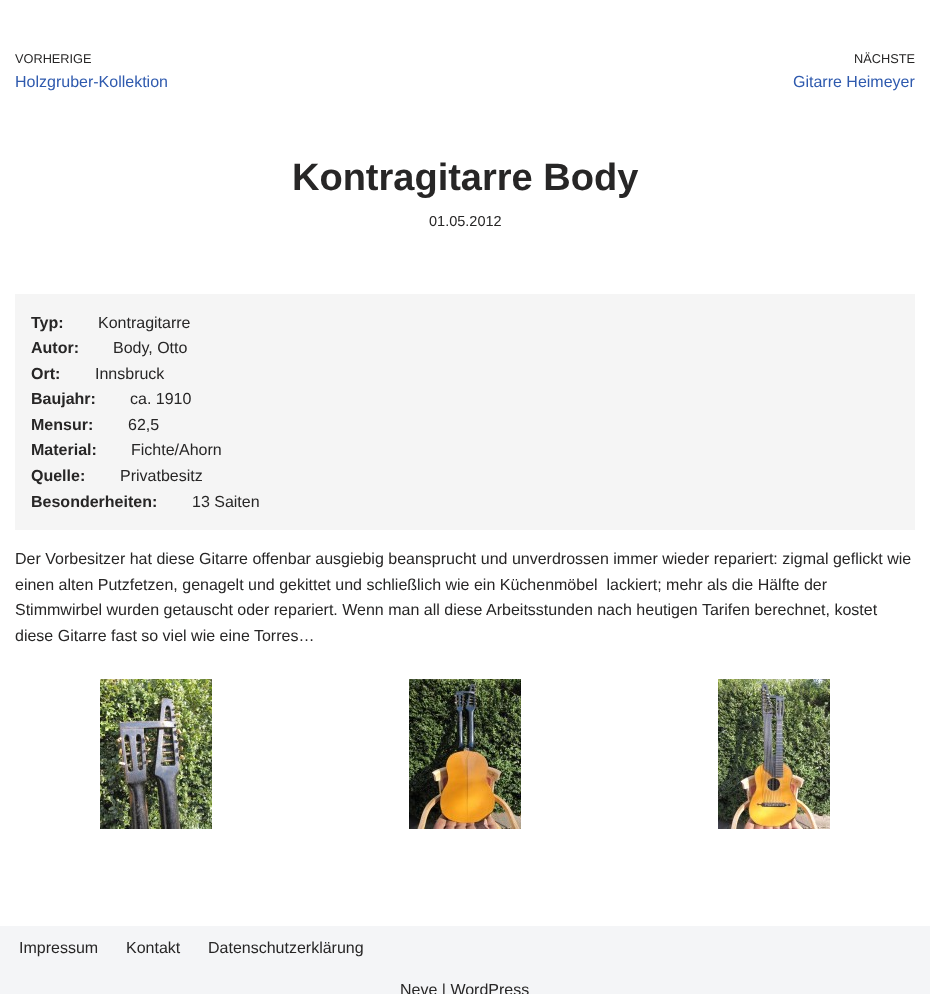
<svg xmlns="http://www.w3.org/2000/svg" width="930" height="994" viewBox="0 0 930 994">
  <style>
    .t1 { font: 12.75px Liberation Sans; fill: #272626; }
    .t2 { font: 16px Liberation Sans; fill: #2f5aae; }
    .t3 { font: bold 38px Liberation Sans; fill: #272626; }
    .t4 { font: 14.5px Liberation Sans; fill: #272626; }
    .t5 { font: bold 16px Liberation Sans; fill: #272626; }
    .t6 { font: 16px Liberation Sans; fill: #272626; }
  </style>
  <rect width="100%" height="100%" fill="#fff"/>
  <text x="15" y="63" class="t1">VORHERIGE</text>
  <text x="15" y="87" class="t2">Holzgruber-Kollektion</text>
  <text x="854" y="63" class="t1">NÄCHSTE</text>
  <text x="793" y="87" class="t2">Gitarre Heimeyer</text>
  <text x="292" y="190" class="t3">Kontragitarre Body</text>
  <text x="429" y="226" class="t4">01.05.2012</text>
  <rect x="15" y="294" width="900" height="236" fill="#f5f5f5"/>
  <text x="31" y="328" class="t5">Typ:</text>
  <text x="98" y="328" class="t6">Kontragitarre</text>
  <text x="31" y="353" class="t5">Autor:</text>
  <text x="113" y="353" class="t6">Body, Otto</text>
  <text x="31" y="379" class="t5">Ort:</text>
  <text x="95" y="379" class="t6">Innsbruck</text>
  <text x="31" y="404" class="t5">Baujahr:</text>
  <text x="130" y="404" class="t6">ca. 1910</text>
  <text x="31" y="430" class="t5">Mensur:</text>
  <text x="128" y="430" class="t6">62,5</text>
  <text x="31" y="455" class="t5">Material:</text>
  <text x="131" y="455" class="t6">Fichte/Ahorn</text>
  <text x="31" y="481" class="t5">Quelle:</text>
  <text x="120" y="481" class="t6">Privatbesitz</text>
  <text x="31" y="507" class="t5">Besonderheiten:</text>
  <text x="192" y="507" class="t6">13 Saiten</text>
  <text x="15" y="564" class="t6">Der Vorbesitzer hat diese Gitarre offenbar ausgiebig beansprucht und unverdrossen immer wieder repariert: zigmal geflickt wie</text>
  <text x="15" y="590" class="t6" xml:space="preserve">einen alten Putzfetzen, genagelt und gekittet und schließlich wie ein Küchenmöbel  lackiert; mehr als die Hälfte der</text>
  <text x="15" y="615" class="t6">Stimmwirbel wurden getauscht oder repariert. Wenn man all diese Arbeitsstunden nach heutigen Tarifen berechnet, kostet</text>
  <text x="15" y="641" class="t6">diese Gitarre fast so viel wie eine Torres…</text>
  <image x="100" y="679" width="112" height="150" href="images/1.png"/>
  <image x="409" y="679" width="112" height="150" href="images/2.png"/>
  <image x="718" y="679" width="112" height="150" href="images/3.png"/>
  <rect x="0" y="926" width="930" height="68" fill="#f4f5f7"/>
  <text x="19" y="953" class="t6">Impressum</text>
  <text x="126" y="953" class="t6">Kontakt</text>
  <text x="208" y="953" class="t6">Datenschutzerklärung</text>
  <text x="400" y="995" class="t6">Neve | WordPress</text>
</svg>
